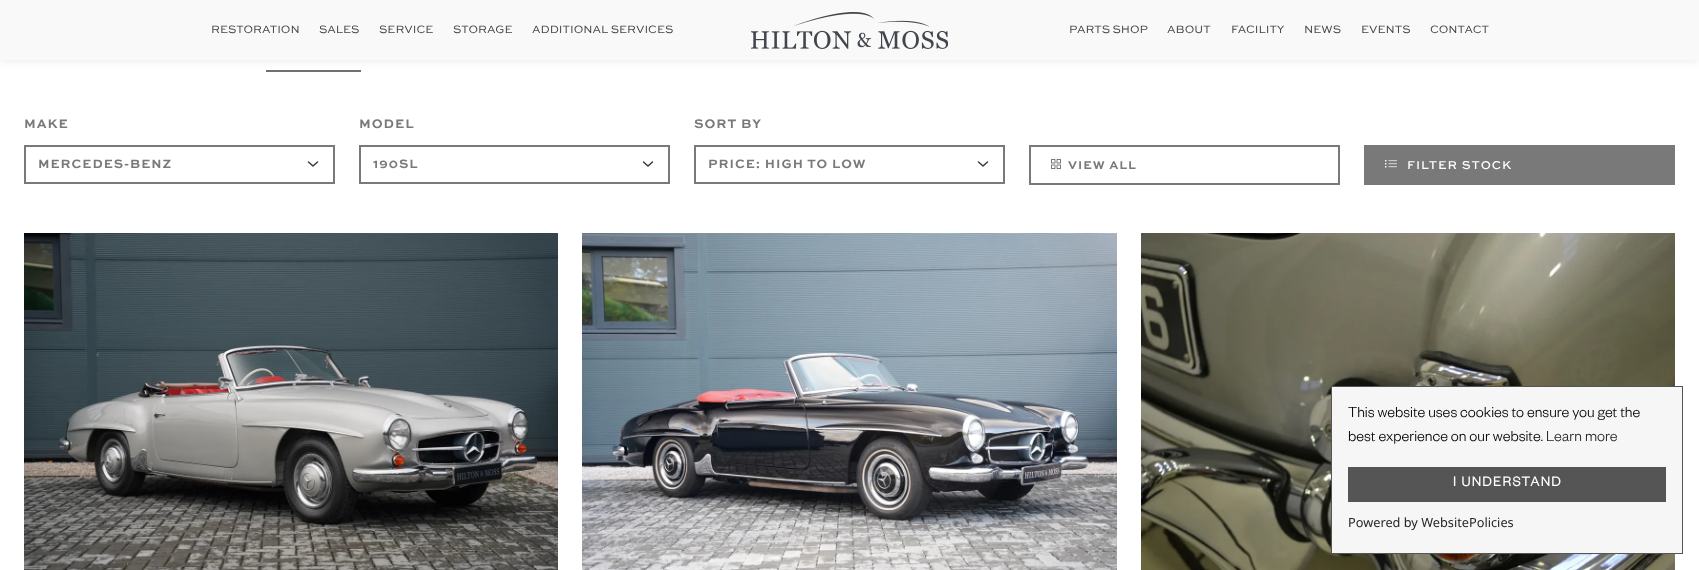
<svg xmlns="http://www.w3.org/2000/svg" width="1699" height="570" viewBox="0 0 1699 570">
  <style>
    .t1 { font: 11.25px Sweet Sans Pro; fill: #444; }
    .t2 { font: bold 13px Sweet Sans Pro; letter-spacing: 1px; fill: #797979; }
    .t3 { font: bold 12.75px Sweet Sans Pro; letter-spacing: 1px; fill: #797979; }
    .t4 { font: bold 12px Sweet Sans Pro; letter-spacing: 1px; fill: #797979; }
    .t5 { font: 500 12px Sweet Sans Pro; letter-spacing: 1px; fill: #fff; }
    .t6 { font: 300 16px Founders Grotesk; fill: #000; }
    .t7 { font: 300 16px Founders Grotesk; fill: #252525; }
    .t8 { font: bold 14.5px Founders Grotesk; letter-spacing: 1.5px; fill: #fff; }
    .t9 { font: 12.75px Noto Sans; fill: #252525; }
  </style>
  <rect width="100%" height="100%" fill="#fff"/>
  <rect x="266" y="70" width="95" height="2" fill="#707070"/>
  <rect x="0" y="0" width="1699" height="60" fill="#0000001a" filter="blur(5px)"/>
  <rect x="0" y="0" width="1699" height="60" fill="#f9f9f9"/>
  <text x="211" y="33" class="t1">RESTORATION</text>
  <text x="319" y="33" class="t1">SALES</text>
  <text x="379" y="33" class="t1">SERVICE</text>
  <text x="453" y="33" class="t1">STORAGE</text>
  <text x="532" y="33" class="t1">ADDITIONAL SERVICES</text>
  <image x="751" y="12" width="197" height="37" href="images/1.png"/>
  <text x="1069" y="33" class="t1">PARTS SHOP</text>
  <text x="1167" y="33" class="t1">ABOUT</text>
  <text x="1231" y="33" class="t1">FACILITY</text>
  <text x="1304" y="33" class="t1">NEWS</text>
  <text x="1361" y="33" class="t1">EVENTS</text>
  <text x="1430" y="33" class="t1">CONTACT</text>
  <text x="24" y="128" class="t2">MAKE</text>
  <path d="M308.5 162L313 166L317.5 162" fill="none" stroke="#343a40" stroke-width="1.5" stroke-linecap="round" stroke-linejoin="round"/>
  <rect x="25" y="146" width="309" height="37" fill="none" stroke="#797979" stroke-width="2"/>
  <text x="38" y="168" class="t3">MERCEDES-BENZ</text>
  <text x="359" y="128" class="t2">MODEL</text>
  <path d="M643.5 162L648 166L652.5 162" fill="none" stroke="#343a40" stroke-width="1.5" stroke-linecap="round" stroke-linejoin="round"/>
  <rect x="360" y="146" width="309" height="37" fill="none" stroke="#797979" stroke-width="2"/>
  <text x="373" y="168" class="t3">190SL</text>
  <text x="694" y="128" class="t2">SORT BY</text>
  <path d="M978.5 162L983 166L987.5 162" fill="none" stroke="#343a40" stroke-width="1.5" stroke-linecap="round" stroke-linejoin="round"/>
  <rect x="695" y="146" width="309" height="37" fill="none" stroke="#797979" stroke-width="2"/>
  <text x="708" y="168" class="t3">PRICE: HIGH TO LOW</text>
  <rect x="1030" y="146" width="309" height="38" fill="none" stroke="#797979" stroke-width="2"/>
  <image x="1051" y="159" width="10" height="10" href="images/2.png"/>
  <text x="1068" y="169" class="t4">VIEW ALL</text>
  <rect x="1364" y="145" width="311" height="40" fill="#797979"/>
  <image x="1385" y="160" width="12" height="8" href="images/3.png"/>
  <text x="1407" y="169" class="t5">FILTER STOCK</text>
  <image x="24" y="233" width="534" height="337" href="images/4.png"/>
  <image x="582" y="233" width="535" height="337" href="images/5.png"/>
  <image x="1141" y="233" width="534" height="337" href="images/6.png"/>
  <rect x="1331.5" y="386.5" width="351" height="167" fill="#f6f6f6" stroke="#555"/>
  <text x="1348" y="417" class="t6">This website uses cookies to ensure you get the</text>
  <text x="1348" y="441" class="t6">best experience on our website.</text>
  <text x="1546" y="441" class="t7">Learn more</text>
  <rect x="1348" y="467" width="318" height="35" fill="#555"/>
  <text x="1453" y="486" class="t8">I UNDERSTAND</text>
  <text x="1348" y="527" class="t9">Powered by WebsitePolicies</text>
</svg>
